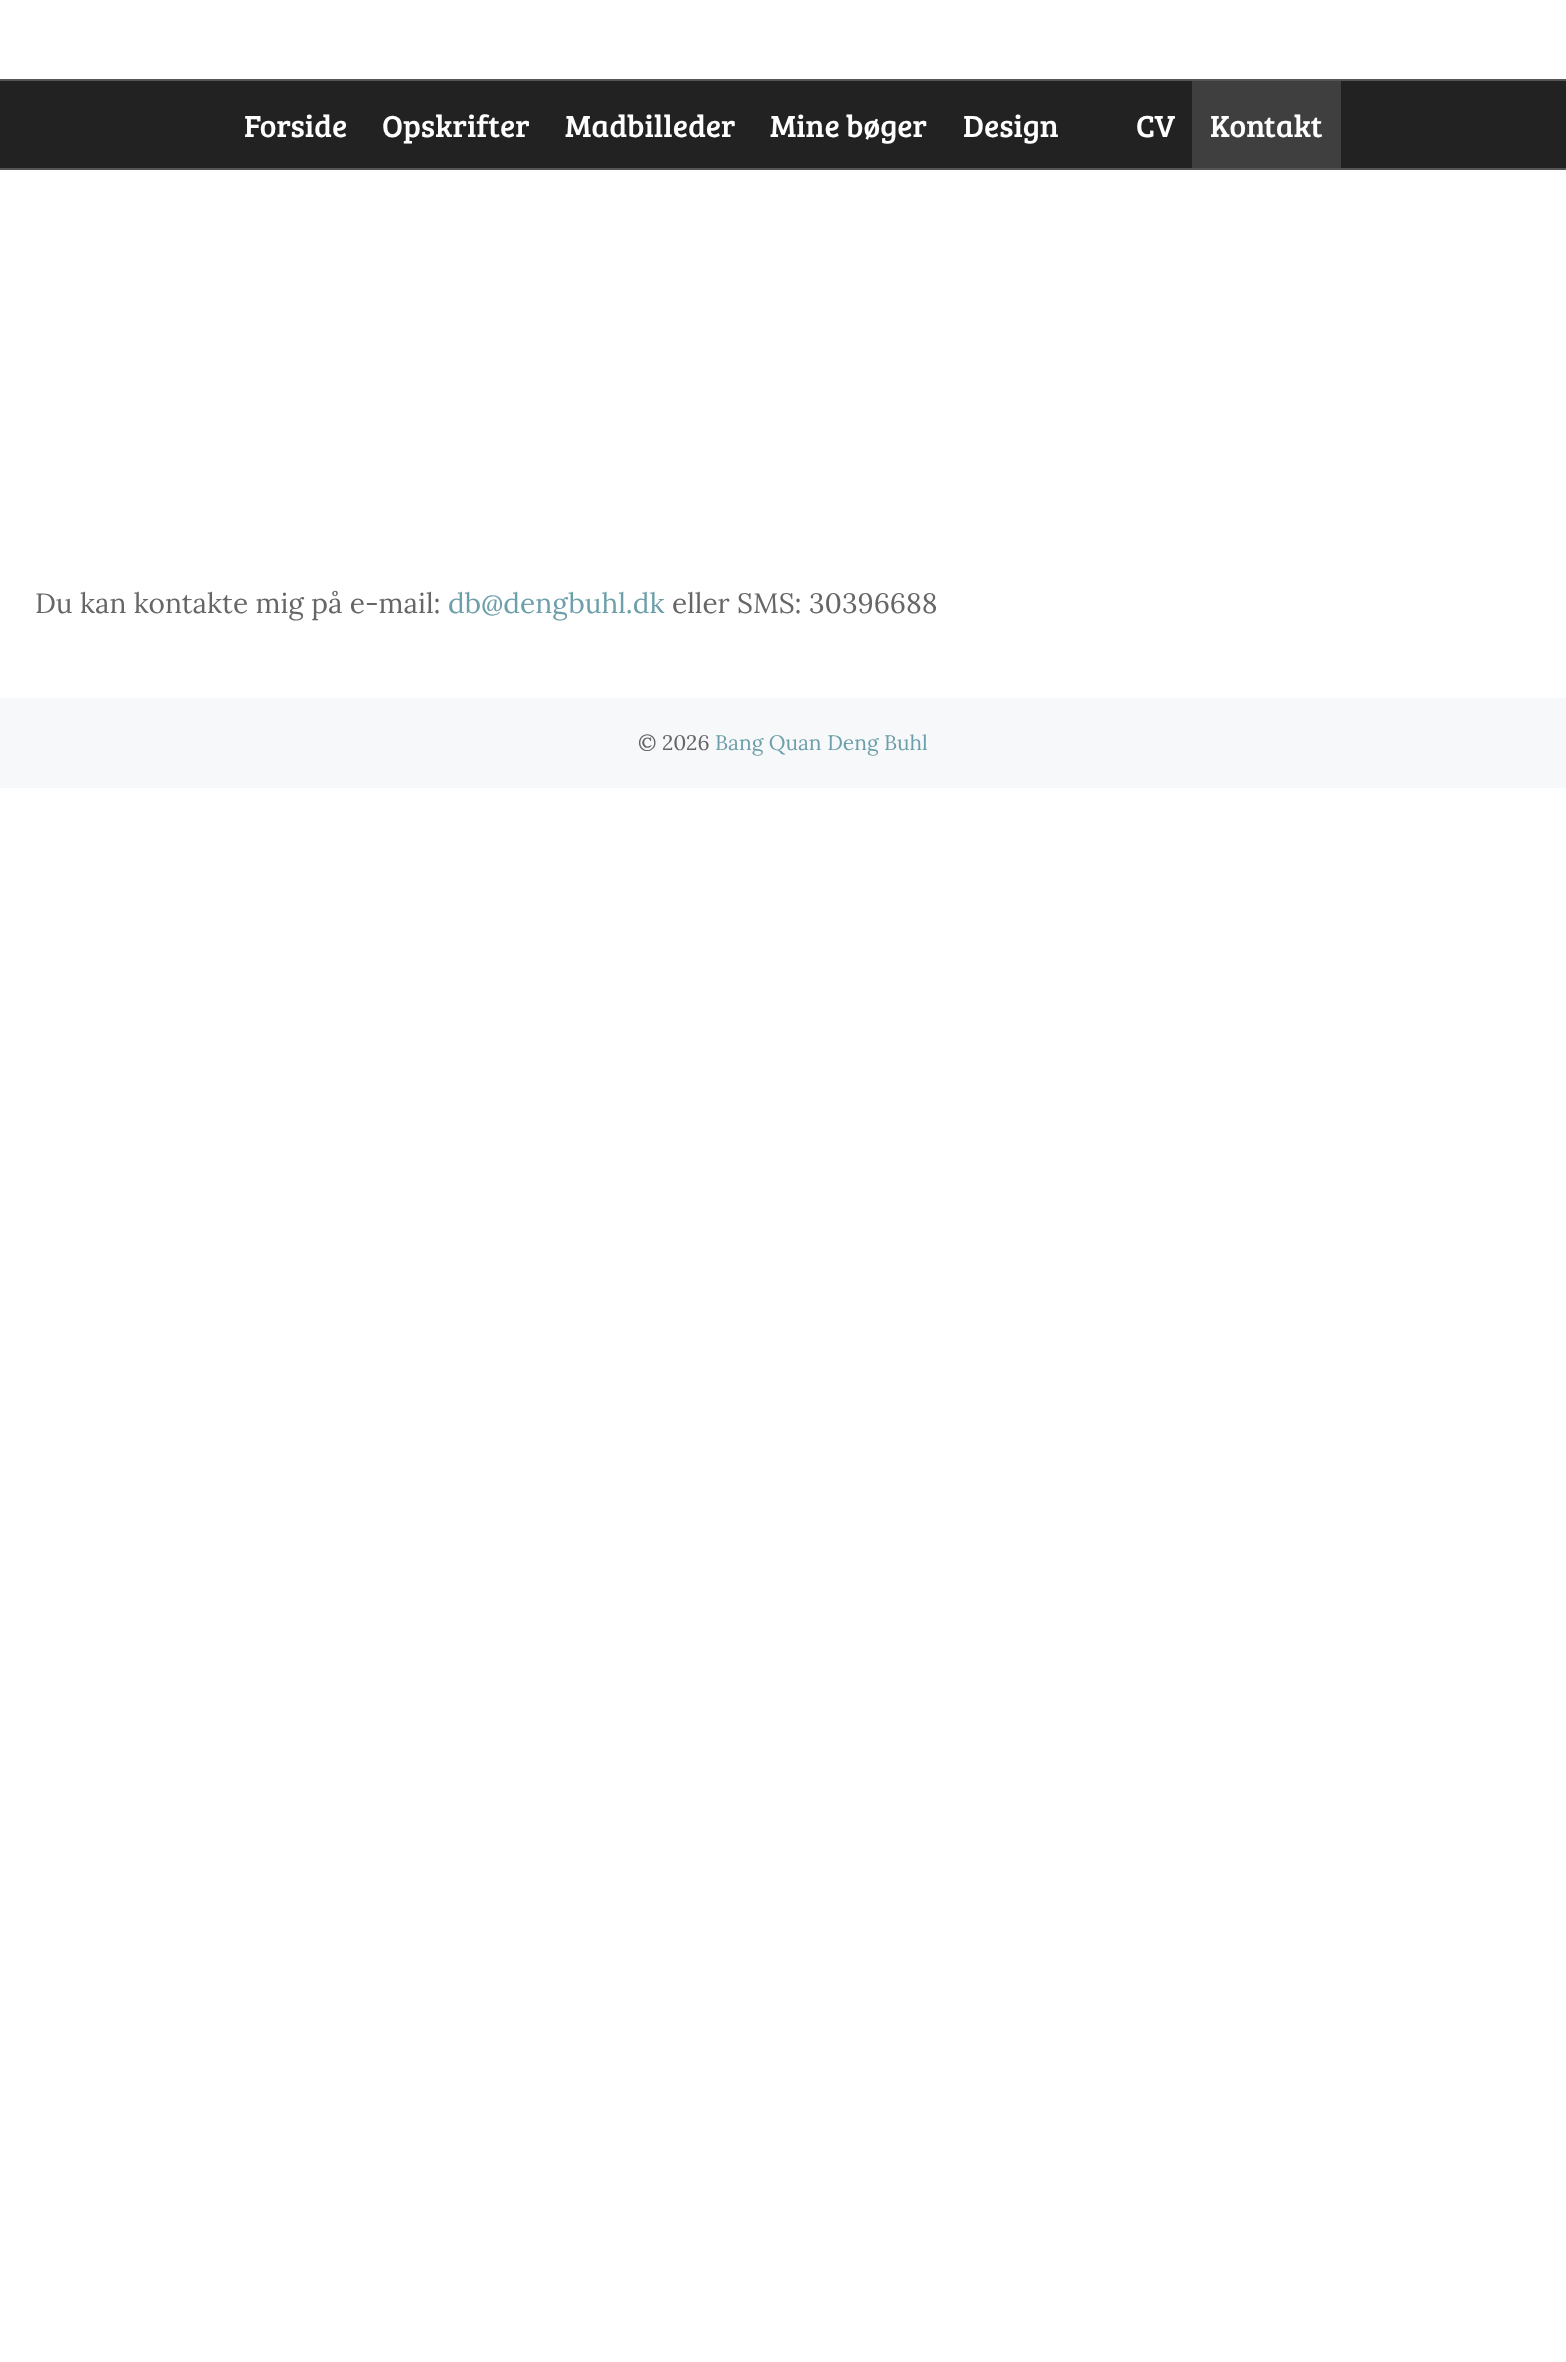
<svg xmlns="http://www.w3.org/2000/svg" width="1566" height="2362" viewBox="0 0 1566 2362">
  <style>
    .t1 { font: 31.5px Bree Serif; fill: #fff; }
    .t2 { font: 28px Lora; fill: #666; }
    .t3 { font: 28px Lora; fill: #6d9faa; }
    .t4 { font: 21px Lora; fill: #666; }
    .t5 { font: 21px Lora; fill: #6d9faa; }
  </style>
  <rect width="100%" height="100%" fill="#fff"/>
  <rect x="0" y="81" width="1566" height="87" fill="#222"/>
  <rect x="0" y="79" width="1566" height="2" fill="#555"/>
  <rect x="0" y="168" width="1566" height="2" fill="#555"/>
  <text x="244" y="137" class="t1">Forside</text>
  <text x="382" y="137" class="t1">Opskrifter</text>
  <text x="565" y="137" class="t1">Madbilleder</text>
  <text x="770" y="137" class="t1">Mine bøger</text>
  <text x="963" y="137" class="t1">Design</text>
  <text x="1136" y="137" class="t1">CV</text>
  <rect x="1192" y="81" width="149" height="87" fill="#3f3f3f"/>
  <text x="1210" y="137" class="t1">Kontakt</text>
  <text x="35" y="613" class="t2">Du kan kontakte mig på e-mail:</text>
  <text x="448" y="613" class="t3">db@dengbuhl.dk</text>
  <text x="672" y="613" class="t2">eller SMS: 30396688</text>
  <rect x="0" y="698" width="1566" height="90" fill="#f7f8f9"/>
  <text x="638" y="750" class="t4">© 2026</text>
  <text x="715" y="750" class="t5">Bang Quan Deng Buhl</text>
</svg>
